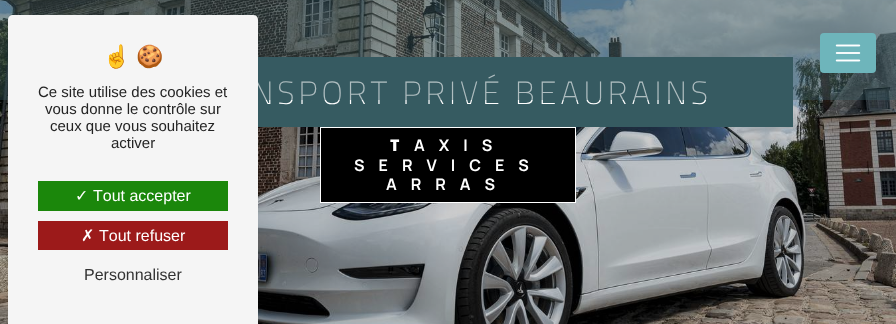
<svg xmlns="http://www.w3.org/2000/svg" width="896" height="324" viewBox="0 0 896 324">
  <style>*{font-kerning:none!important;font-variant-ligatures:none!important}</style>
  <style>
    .t1 { font: 200 32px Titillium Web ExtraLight; letter-spacing: 4px; fill: #fff; }
    .t2 { font: 22px Noto Color Emoji; fill: #242424; }
    .t3 { font: 15px Liberation Sans; fill: #242424; }
    .t4 { font: 16px DejaVu Sans; fill: #fff; }
    .t5 { font: 16px Liberation Sans; fill: #fff; }
    .t6 { font: 16px Liberation Sans; fill: #333; }
    .t7 { font: 900 16px Noto Sans; letter-spacing: 14px; fill: #fff; }
    .t8 { font: bold 16px Manrope; letter-spacing: 14px; fill: #fff; }
  </style>
  <rect width="100%" height="100%" fill="#fff"/>
  <image x="0" y="0" width="896" height="324" href="images/2.png"/>
  <rect x="258" y="57" width="535" height="70" fill="#365b61"/>
  <text x="252" y="104" class="t1">NSPORT PRIVÉ BEAURAINS</text>
  <rect x="0" y="0" width="896" height="100" fill="#365b6166"/>
  <path d="M13 15H253C256 15 258 17 258 20V324H8V20C8 17 10 15 13 15Z" fill="#f5f5f5"/>
  <text x="103" y="64" class="t2">☝</text>
  <text x="136" y="64" class="t2">🍪</text>
  <text x="38" y="97" class="t3">Ce site utilise des cookies et</text>
  <text x="45" y="114" class="t3">vous donne le contrôle sur</text>
  <text x="50" y="131" class="t3">ceux que vous souhaitez</text>
  <text x="111" y="148" class="t3">activer</text>
  <rect x="38" y="181" width="190" height="30" fill="#1b870b"/>
  <text x="75" y="201" class="t4">✓</text>
  <text x="93" y="201" class="t5">Tout accepter</text>
  <rect x="38" y="221" width="190" height="29" fill="#9c1a1a"/>
  <text x="81" y="241" class="t4">✗</text>
  <text x="99" y="241" class="t5">Tout refuser</text>
  <text x="84" y="280" class="t6">Personnaliser</text>
  <rect x="820" y="33" width="56" height="40" rx="4" fill="#6eb5bb"/>
  <image x="835" y="44" width="26" height="18" href="images/1.png"/>
  <rect x="320.5" y="127.5" width="255" height="75" fill="#000" stroke="#fff"/>
  <text x="390" y="151" class="t7">T</text>
  <text x="414" y="151" class="t8">AXIS</text>
  <text x="354" y="171" class="t8">SERVICES</text>
  <text x="386" y="190" class="t8">ARRAS</text>
</svg>
